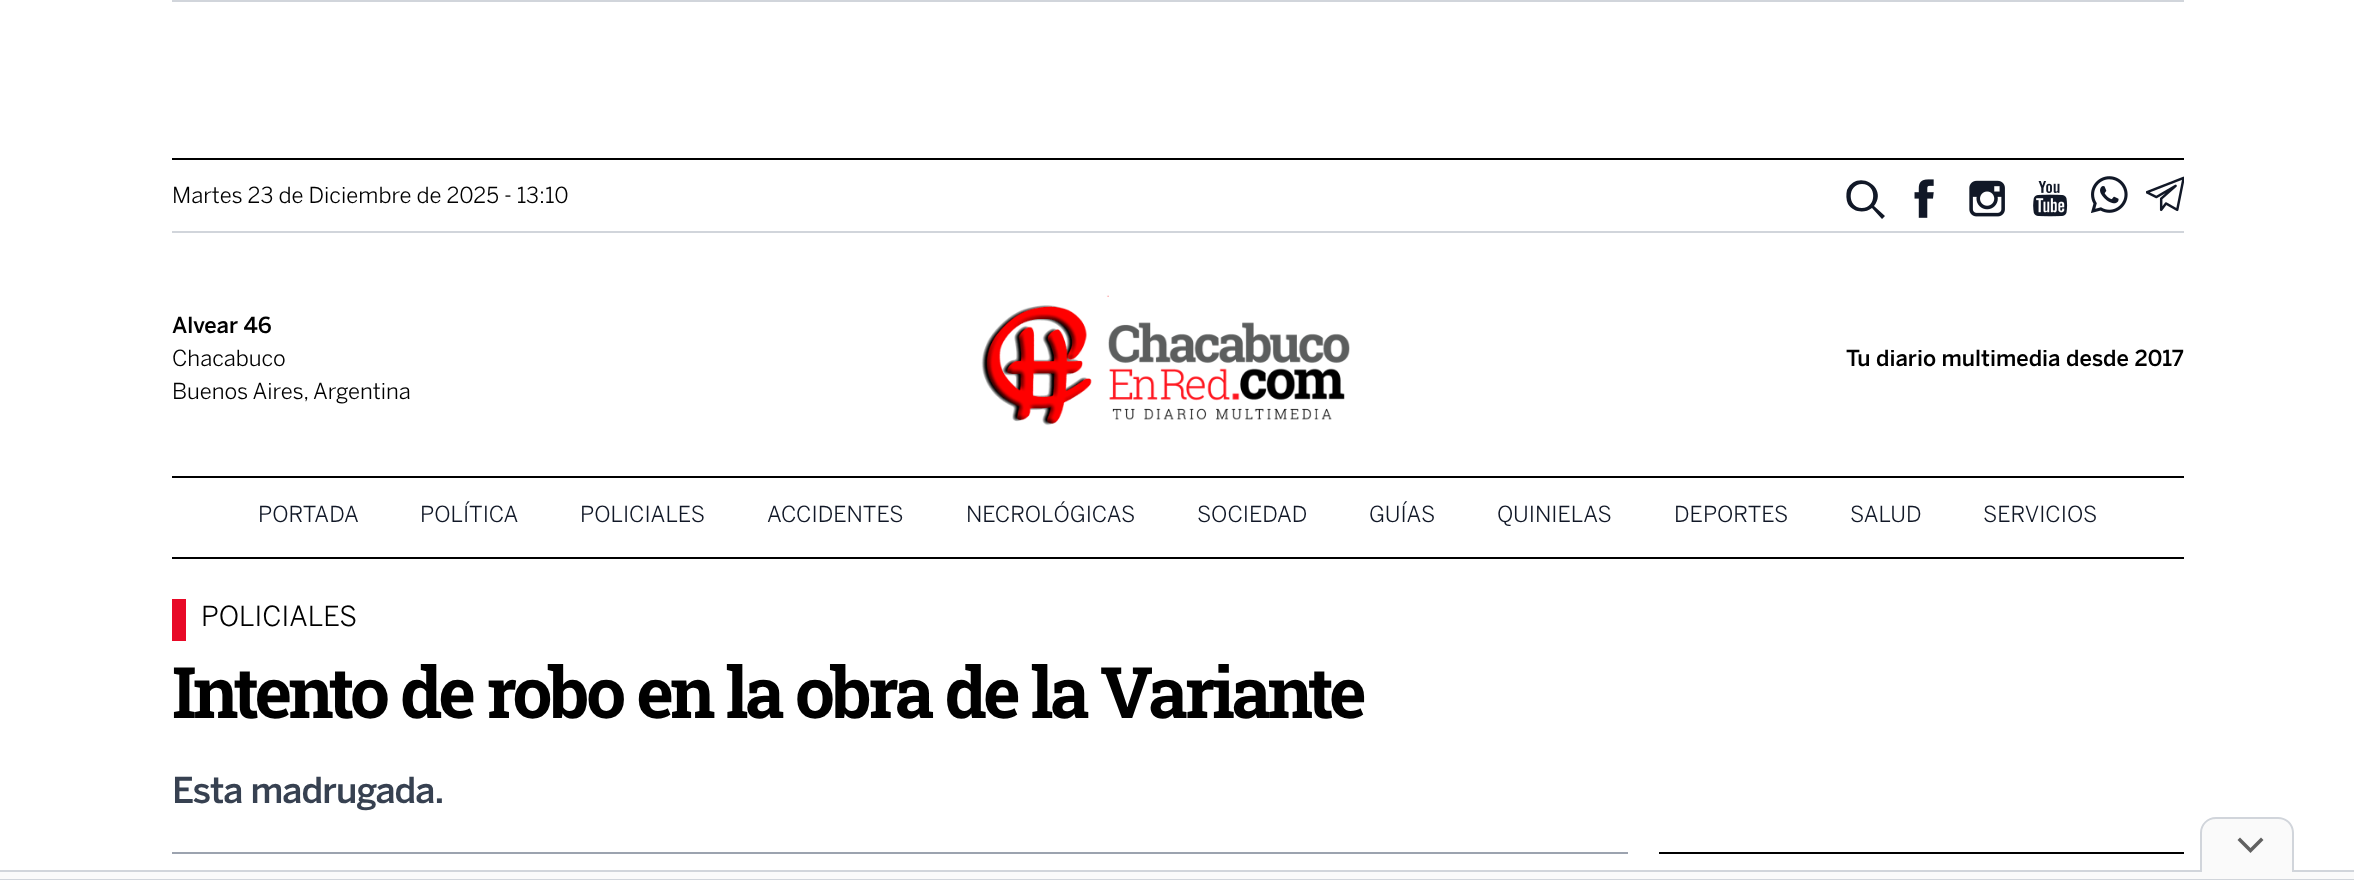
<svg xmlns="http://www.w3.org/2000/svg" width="2354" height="880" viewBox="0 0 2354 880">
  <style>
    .t1 { font: 22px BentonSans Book; fill: #000; }
    .t2 { font: 500 22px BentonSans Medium; fill: #000; }
    .t3 { font: 22px BentonSans Book; fill: #111827; }
    .t4 { font: 27.5px BentonSans Book; fill: #000; }
    .t5 { font: bold 70.9px Roboto Slab; letter-spacing: -3.55px; fill: #000; }
    .t6 { font: 500 35.5px BentonSans Medium; letter-spacing: -0.9px; fill: #374151; }
  </style>
  <rect width="100%" height="100%" fill="#fff"/>
  <rect x="172" y="0" width="2012" height="2" fill="#d1d5db"/>
  <rect x="172" y="158" width="2012" height="2" fill="#000"/>
  <rect x="172" y="231" width="2012" height="2" fill="#d1d5db"/>
  <text x="172" y="203" class="t1">Martes 23 de Diciembre de 2025 - 13:10</text>
  <path d="M1872 208C1864 214 1853 212 1848 204C1846 200 1846 194 1847 190C1857 168 1889 187 1874 206L1885 216L1882 219ZM1862 208C1877 208 1877 184 1862 184C1847 184 1847 208 1862 208Z" fill="#111827"/>
  <image x="1914" y="179" width="20" height="39" href="images/1.png"/>
  <image x="1969" y="180" width="36" height="37" href="images/2.png"/>
  <image x="2033" y="181" width="35" height="36" href="images/3.png"/>
  <image x="2091" y="176" width="37" height="37" href="images/4.png"/>
  <image x="2146" y="176" width="38" height="36" href="images/5.png"/>
  <text x="172" y="333" class="t2">Alvear 46</text>
  <text x="172" y="366" class="t1">Chacabuco</text>
  <text x="172" y="399" class="t1">Buenos Aires, Argentina</text>
  <image x="981" y="295" width="369" height="131" href="images/6.png"/>
  <text x="1846" y="366" class="t2">Tu diario multimedia desde 2017</text>
  <rect x="172" y="476" width="2012" height="2" fill="#000"/>
  <rect x="172" y="557" width="2012" height="2" fill="#000"/>
  <text x="258" y="522" class="t3">PORTADA</text>
  <text x="420" y="522" class="t3">POLÍTICA</text>
  <text x="580" y="522" class="t3">POLICIALES</text>
  <text x="767" y="522" class="t3">ACCIDENTES</text>
  <text x="966" y="522" class="t3">NECROLÓGICAS</text>
  <text x="1197" y="522" class="t3">SOCIEDAD</text>
  <text x="1369" y="522" class="t3">GUÍAS</text>
  <text x="1497" y="522" class="t3">QUINIELAS</text>
  <text x="1674" y="522" class="t3">DEPORTES</text>
  <text x="1850" y="522" class="t3">SALUD</text>
  <text x="1983" y="522" class="t3">SERVICIOS</text>
  <rect x="172" y="599" width="14" height="42" fill="#e80927"/>
  <text x="201" y="626" class="t4">POLICIALES</text>
  <text x="172" y="718" class="t5">Intento de robo en la obra de la Variante</text>
  <text x="172" y="803" class="t6">Esta madrugada.</text>
  <rect x="172" y="852" width="1456" height="2" fill="#9ca3af"/>
  <rect x="1659" y="852" width="525" height="2" fill="#000"/>
  <rect x="0" y="872" width="2354" height="7" fill="#fafafa"/>
  <rect x="0" y="870" width="2354" height="2" fill="#d1d5db"/>
  <path d="M2216 819H2279C2286.5 819 2293 825.5 2293 833V872H2202V833C2202 825.5 2208.5 819 2216 819Z" fill="#fafafa"/>
  <path d="M2216 817H2278C2287 817 2294 824 2294 833V872H2200V833C2200 824 2207 817 2216 817ZM2216 819H2278C2286 819 2292 825 2292 833V872H2202V833C2202 825 2208 819 2216 819Z" fill="#d1d5db" fill-rule="evenodd"/>
  <path d="M2240 840L2250.5 850.5M2250.5 850.5L2261 840" fill="none" stroke="#616161" stroke-width="3.5" stroke-linecap="square"/>
  <rect x="0" y="879" width="2354" height="1" fill="#d1d5db"/>
</svg>
